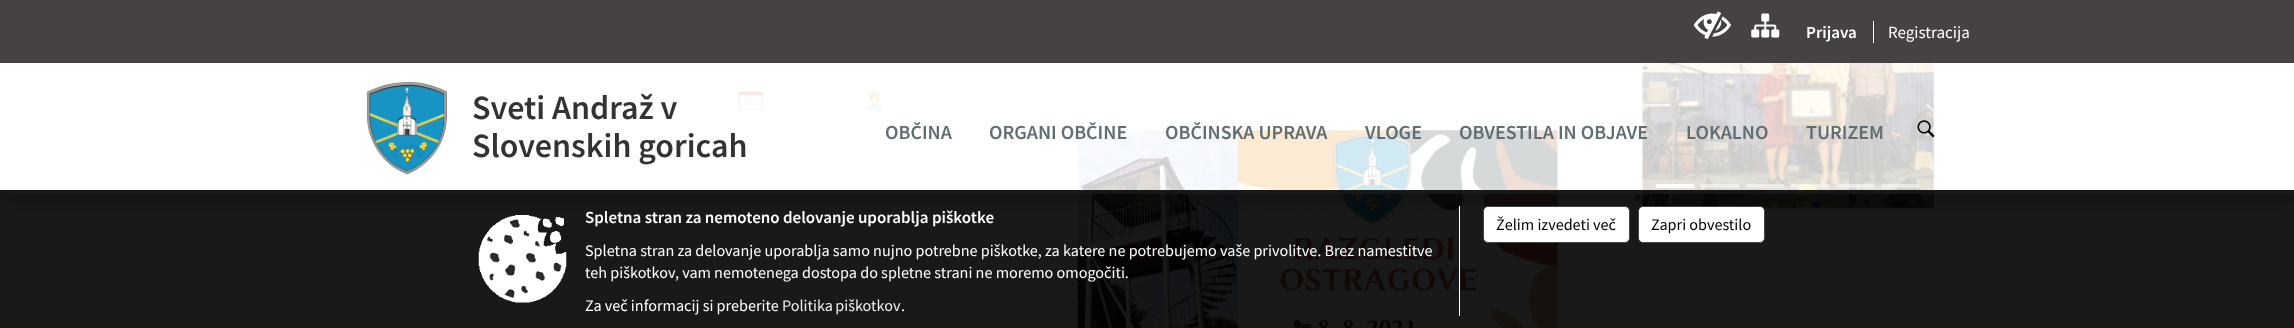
<svg xmlns="http://www.w3.org/2000/svg" width="2294" height="328" viewBox="0 0 2294 328">
  <style>
    .t1 { font: 600 17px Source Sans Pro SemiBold; fill: #fff; }
    .t2 { font: 17px Source Sans Pro; fill: #fff; }
    .t3 { font: 600 34px Source Sans Pro SemiBold; fill: #333; }
    .t4 { font: 600 20px Source Sans Pro SemiBold; fill: #606e74; }
    .t5 { font: 16.15px Source Sans Pro; fill: #fff; }
    .t6 { font: 16.15px Source Sans Pro; fill: #eee; }
    .t7 { font: 16.15px Source Sans Pro; fill: #000; }
  </style>
  <defs>
    <clipPath id="clip1"><path d="M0 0H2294V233H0ZM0 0H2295V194H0Z" clip-rule="evenodd"/></clipPath>
  </defs>
  <rect width="100%" height="100%" fill="#fff"/>
  <image x="738" y="92" width="25" height="18" href="images/5.png"/>
  <image x="867" y="91" width="15" height="20" href="images/6.png"/>
  <image x="1077" y="130" width="481" height="198" href="images/7.png"/>
  <image x="1642" y="63" width="292" height="145" href="images/8.png"/>
  <image x="1642" y="103" width="7" height="34" href="images/9.png"/>
  <image x="1926" y="103" width="8" height="34" href="images/10.png"/>
  <rect x="1656" y="184" width="38" height="4" fill="#fff"/>
  <circle cx="1638" cy="198" r="3" fill="#555"/>
  <rect x="1701" y="184" width="38" height="4" fill="#ffffff80"/>
  <circle cx="1683" cy="198" r="3" fill="#55555580"/>
  <rect x="1746" y="184" width="38" height="4" fill="#ffffff80"/>
  <circle cx="1728" cy="198" r="3" fill="#55555580"/>
  <rect x="1791" y="184" width="38" height="4" fill="#ffffff80"/>
  <circle cx="1773" cy="198" r="3" fill="#55555580"/>
  <rect x="1836" y="184" width="38" height="4" fill="#ffffff80"/>
  <circle cx="1818" cy="198" r="3" fill="#55555580"/>
  <rect x="1881" y="184" width="38" height="4" fill="#ffffff80"/>
  <circle cx="1863" cy="198" r="3" fill="#55555580"/>
  <g clip-path="url(#clip1)">
    <rect x="3" y="0" width="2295" height="194" fill="#71899f" filter="blur(12.5px)"/>
  </g>
  <rect x="0" y="63" width="2294" height="131" fill="#ffffffcc"/>
  <rect x="0" y="0" width="2294" height="63" fill="#454144"/>
  <image x="1693" y="11" width="38" height="29" href="images/1.png"/>
  <image x="1751" y="13" width="29" height="25" href="images/2.png"/>
  <text x="1806" y="38" class="t1">Prijava</text>
  <rect x="1873" y="21" width="1" height="22" fill="#fff"/>
  <text x="1888" y="38" class="t2">Registracija</text>
  <image x="366" y="81" width="81" height="94" href="images/3.png"/>
  <text x="472" y="119" class="t3">Sveti Andraž v</text>
  <text x="472" y="157" class="t3">Slovenskih goricah</text>
  <text x="885" y="139" class="t4">OBČINA</text>
  <text x="989" y="139" class="t4">ORGANI OBČINE</text>
  <text x="1165" y="139" class="t4">OBČINSKA UPRAVA</text>
  <text x="1365" y="139" class="t4">VLOGE</text>
  <text x="1459" y="139" class="t4">OBVESTILA IN OBJAVE</text>
  <text x="1686" y="139" class="t4">LOKALNO</text>
  <text x="1806" y="139" class="t4">TURIZEM</text>
  <image x="1917" y="120" width="18" height="18" href="images/4.png"/>
  <rect x="0" y="190" width="2294" height="138" fill="#000000e6"/>
  <image x="478" y="215" width="89" height="88" href="images/11.png"/>
  <rect x="1459" y="206" width="1" height="110" fill="#fff"/>
  <text x="585" y="223" class="t1">Spletna stran za nemoteno delovanje uporablja piškotke</text>
  <text x="585" y="256" class="t5">Spletna stran za delovanje uporablja samo nujno potrebne piškotke, za katere ne potrebujemo vaše privolitve. Brez namestitve</text>
  <text x="585" y="278" class="t5">teh piškotkov, vam nemotenega dostopa do spletne strani ne moremo omogočiti.</text>
  <text x="585" y="311" class="t5">Za več informacij si preberite</text>
  <text x="782" y="311" word-spacing="-1" class="t6">Politika piškotkov</text>
  <text x="901" y="311" class="t5">.</text>
  <rect x="1483.5" y="206.5" width="146" height="36" rx="4.5" fill="#fff" stroke="#444"/>
  <text x="1496" y="230" class="t7">Želim izvedeti več</text>
  <rect x="1638.5" y="206.5" width="126" height="36" rx="4.5" fill="#fff" stroke="#444"/>
  <text x="1651" y="230" class="t7">Zapri obvestilo</text>
</svg>
